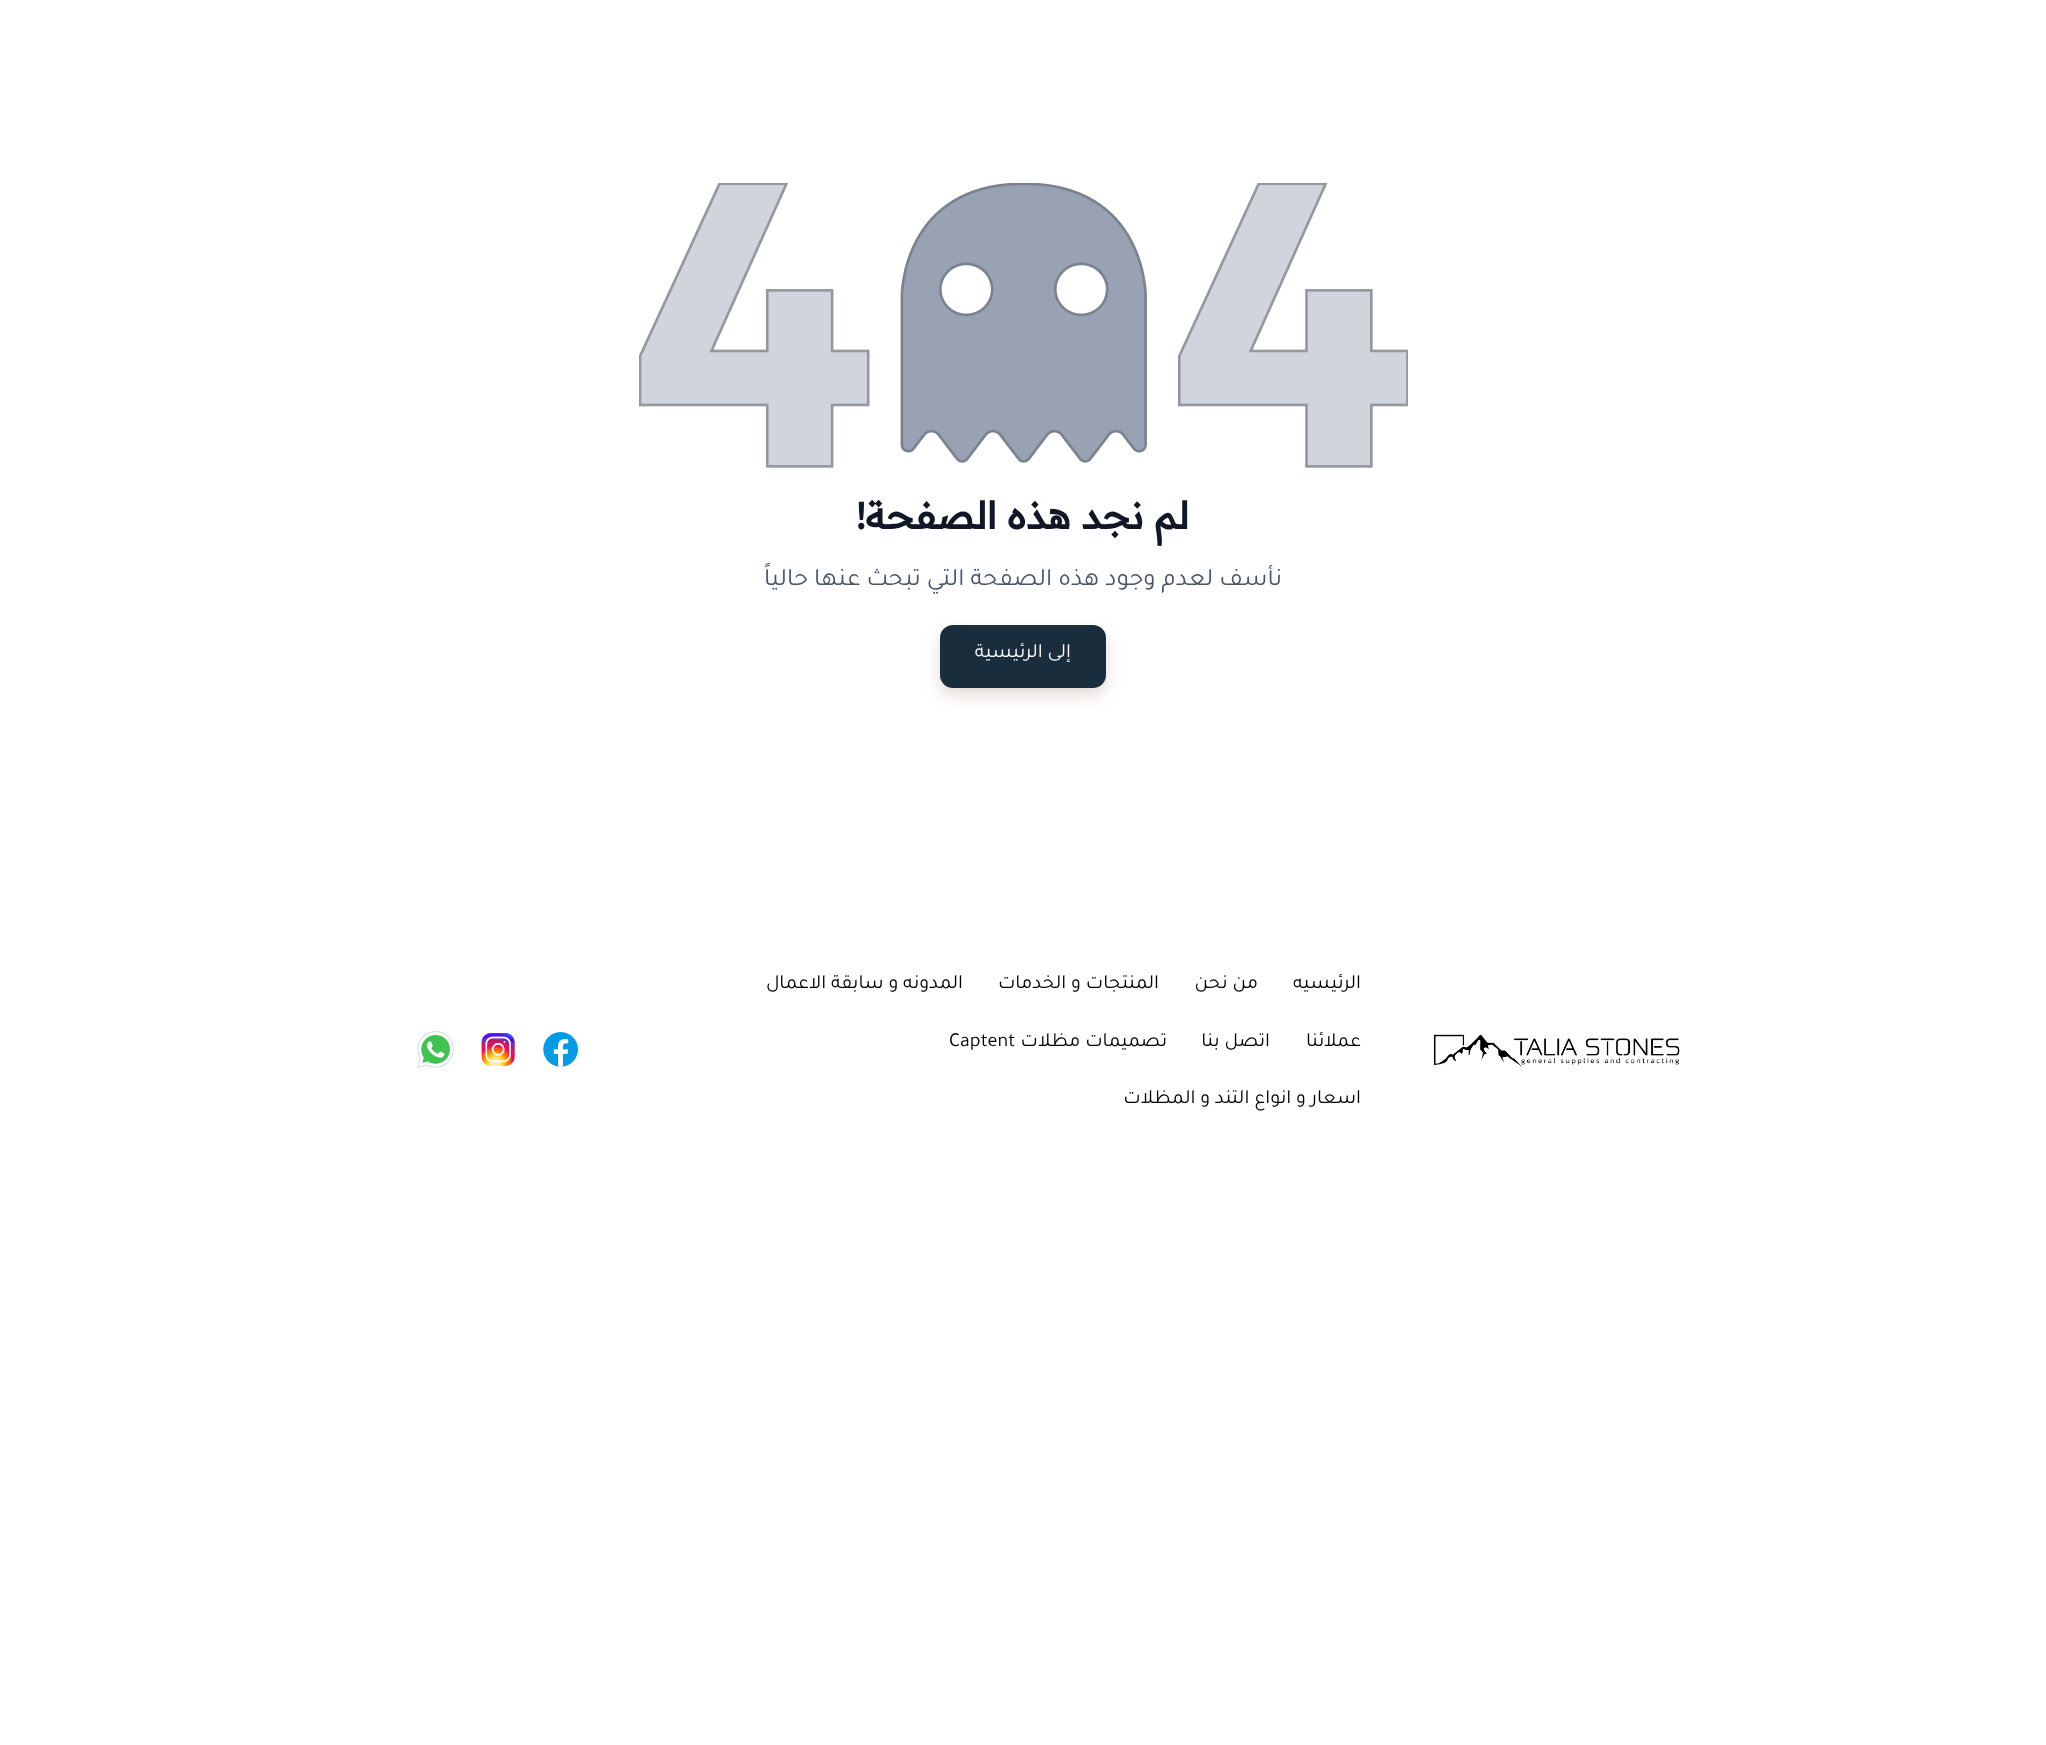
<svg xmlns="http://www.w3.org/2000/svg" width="2046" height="1745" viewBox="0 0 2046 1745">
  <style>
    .t1 { font: bold 37.5px Readex Pro; direction: rtl; fill: #101828; }
    .t2 { font: 25px Tajawal; direction: rtl; fill: #475467; }
    .t3 { font: 20px Tajawal; direction: rtl; fill: #fff; }
    .t4 { font: 20px Tajawal; direction: rtl; fill: #000; }
    .t5 { font: 20px Tajawal; fill: #000; }
  </style>
  <rect width="100%" height="100%" fill="#fff"/>
  <image x="639" y="183" width="769" height="285" href="images/1.png"/>
  <text x="1189" y="529" class="t1">لم نجد هذه الصفحة!</text>
  <text x="1282" y="585" class="t2">نأسف لعدم وجود هذه الصفحة التي تبحث عنها حالياً</text>
  <rect x="940" y="633" width="166" height="62" rx="13" fill="#8d61593d" filter="blur(7.5px)"/>
  <rect x="940" y="625" width="166" height="63" rx="13" fill="#1a2d3d"/>
  <text x="1071" y="657" class="t3">إلى الرئيسية</text>
  <image x="1433" y="1034" width="247" height="33" href="images/2.png"/>
  <text x="1361" y="988" class="t4">الرئيسيه</text>
  <text x="1258" y="988" class="t4">من نحن</text>
  <text x="1159" y="988" class="t4">المنتجات و الخدمات</text>
  <text x="963" y="988" class="t4">المدونه و سابقة الاعمال</text>
  <text x="1361" y="1046" class="t4">عملائنا</text>
  <text x="1270" y="1046" class="t4">اتصل بنا</text>
  <text x="1167" y="1046" class="t4">تصميمات مظلات</text>
  <text x="949" y="1046" class="t5">Captent</text>
  <text x="1361" y="1103" class="t4">اسعار و انواع التند و المظلات</text>
  <image x="543" y="1032" width="35" height="35" href="images/3.png"/>
  <image x="481" y="1033" width="34" height="33" href="images/4.png"/>
  <image x="417" y="1031" width="37" height="37" href="images/5.png"/>
</svg>
